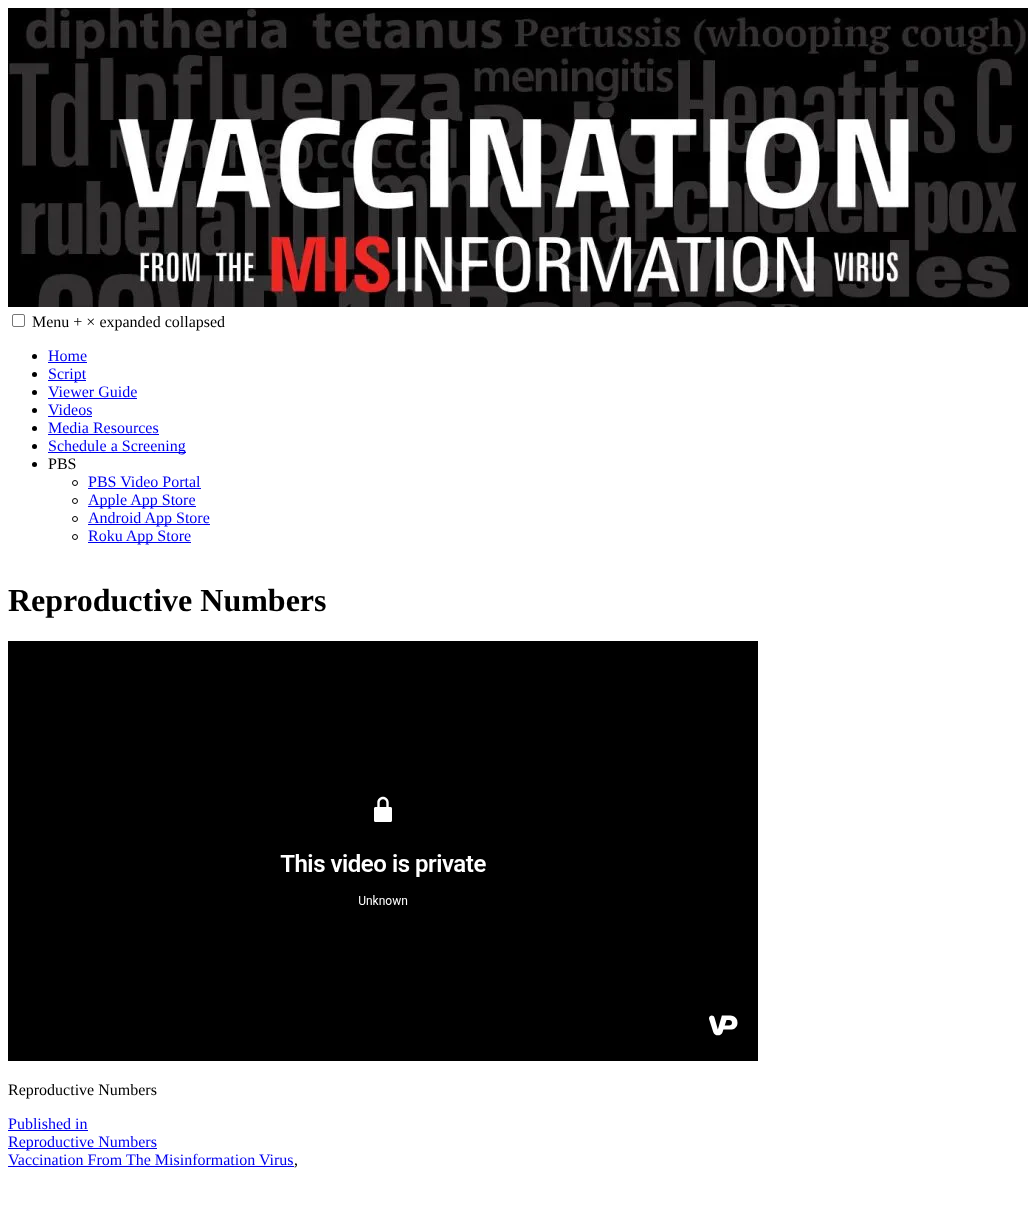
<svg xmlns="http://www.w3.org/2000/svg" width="1029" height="1207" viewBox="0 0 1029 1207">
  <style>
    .t1 { font: 16px Liberation Serif; fill: #000; }
    .t2 { font: 16px Liberation Serif; fill: #00e; }
    .t3 { font: bold 32px Liberation Serif; fill: #000; }
  </style>
  <rect width="100%" height="100%" fill="#fff"/>
  <image x="8" y="8" width="1020" height="299" href="images/1.png"/>
  <rect x="12.5" y="314.5" width="12" height="12" rx="1.5" fill="none" stroke="#767676"/>
  <text x="32" y="327" class="t1">Menu + × expanded collapsed</text>
  <circle cx="34.5" cy="356.5" r="2.5" fill="#000"/>
  <text x="48" y="361" class="t2">Home</text>
  <rect x="48" y="362" width="39" height="1" fill="#00e"/>
  <circle cx="34.5" cy="374.5" r="2.5" fill="#000"/>
  <rect x="48" y="380" width="38" height="1" fill="#00e"/>
  <text x="48" y="379" class="t2">Script</text>
  <circle cx="34.5" cy="392.5" r="2.5" fill="#000"/>
  <text x="48" y="397" class="t2">Viewer Guide</text>
  <rect x="48" y="398" width="89" height="1" fill="#00e"/>
  <circle cx="34.5" cy="410.5" r="2.5" fill="#000"/>
  <text x="48" y="415" class="t2">Videos</text>
  <rect x="48" y="416" width="44" height="1" fill="#00e"/>
  <circle cx="34.5" cy="428.5" r="2.5" fill="#000"/>
  <text x="48" y="433" class="t2">Media Resources</text>
  <rect x="48" y="434" width="111" height="1" fill="#00e"/>
  <circle cx="34.5" cy="446.5" r="2.5" fill="#000"/>
  <rect x="48" y="452" width="138" height="1" fill="#00e"/>
  <text x="48" y="451" class="t2">Schedule a Screening</text>
  <circle cx="34.5" cy="464.5" r="2.5" fill="#000"/>
  <text x="48" y="469" class="t1">PBS</text>
  <circle cx="75" cy="483" r="2.5" fill="none" stroke="#000"/>
  <text x="88" y="487" class="t2">PBS Video Portal</text>
  <rect x="88" y="488" width="113" height="1" fill="#00e"/>
  <circle cx="75" cy="501" r="2.5" fill="none" stroke="#000"/>
  <rect x="88" y="506" width="108" height="1" fill="#00e"/>
  <text x="88" y="505" class="t2">Apple App Store</text>
  <circle cx="75" cy="519" r="2.5" fill="none" stroke="#000"/>
  <rect x="88" y="524" width="122" height="1" fill="#00e"/>
  <text x="88" y="523" class="t2">Android App Store</text>
  <circle cx="75" cy="537" r="2.5" fill="none" stroke="#000"/>
  <rect x="88" y="542" width="103" height="1" fill="#00e"/>
  <text x="88" y="541" class="t2">Roku App Store</text>
  <text x="8" y="611" class="t3">Reproductive Numbers</text>
  <image x="8" y="641" width="750" height="420" href="images/2.png"/>
  <text x="8" y="1095" class="t1">Reproductive Numbers</text>
  <text x="8" y="1129" class="t2">Published in</text>
  <rect x="8" y="1130" width="80" height="1" fill="#00e"/>
  <rect x="8" y="1148" width="149" height="1" fill="#00e"/>
  <text x="8" y="1147" class="t2">Reproductive Numbers</text>
  <text x="8" y="1165" class="t2">Vaccination From The Misinformation Virus</text>
  <rect x="8" y="1166" width="286" height="1" fill="#00e"/>
  <text x="294" y="1165" class="t1">,</text>
</svg>
